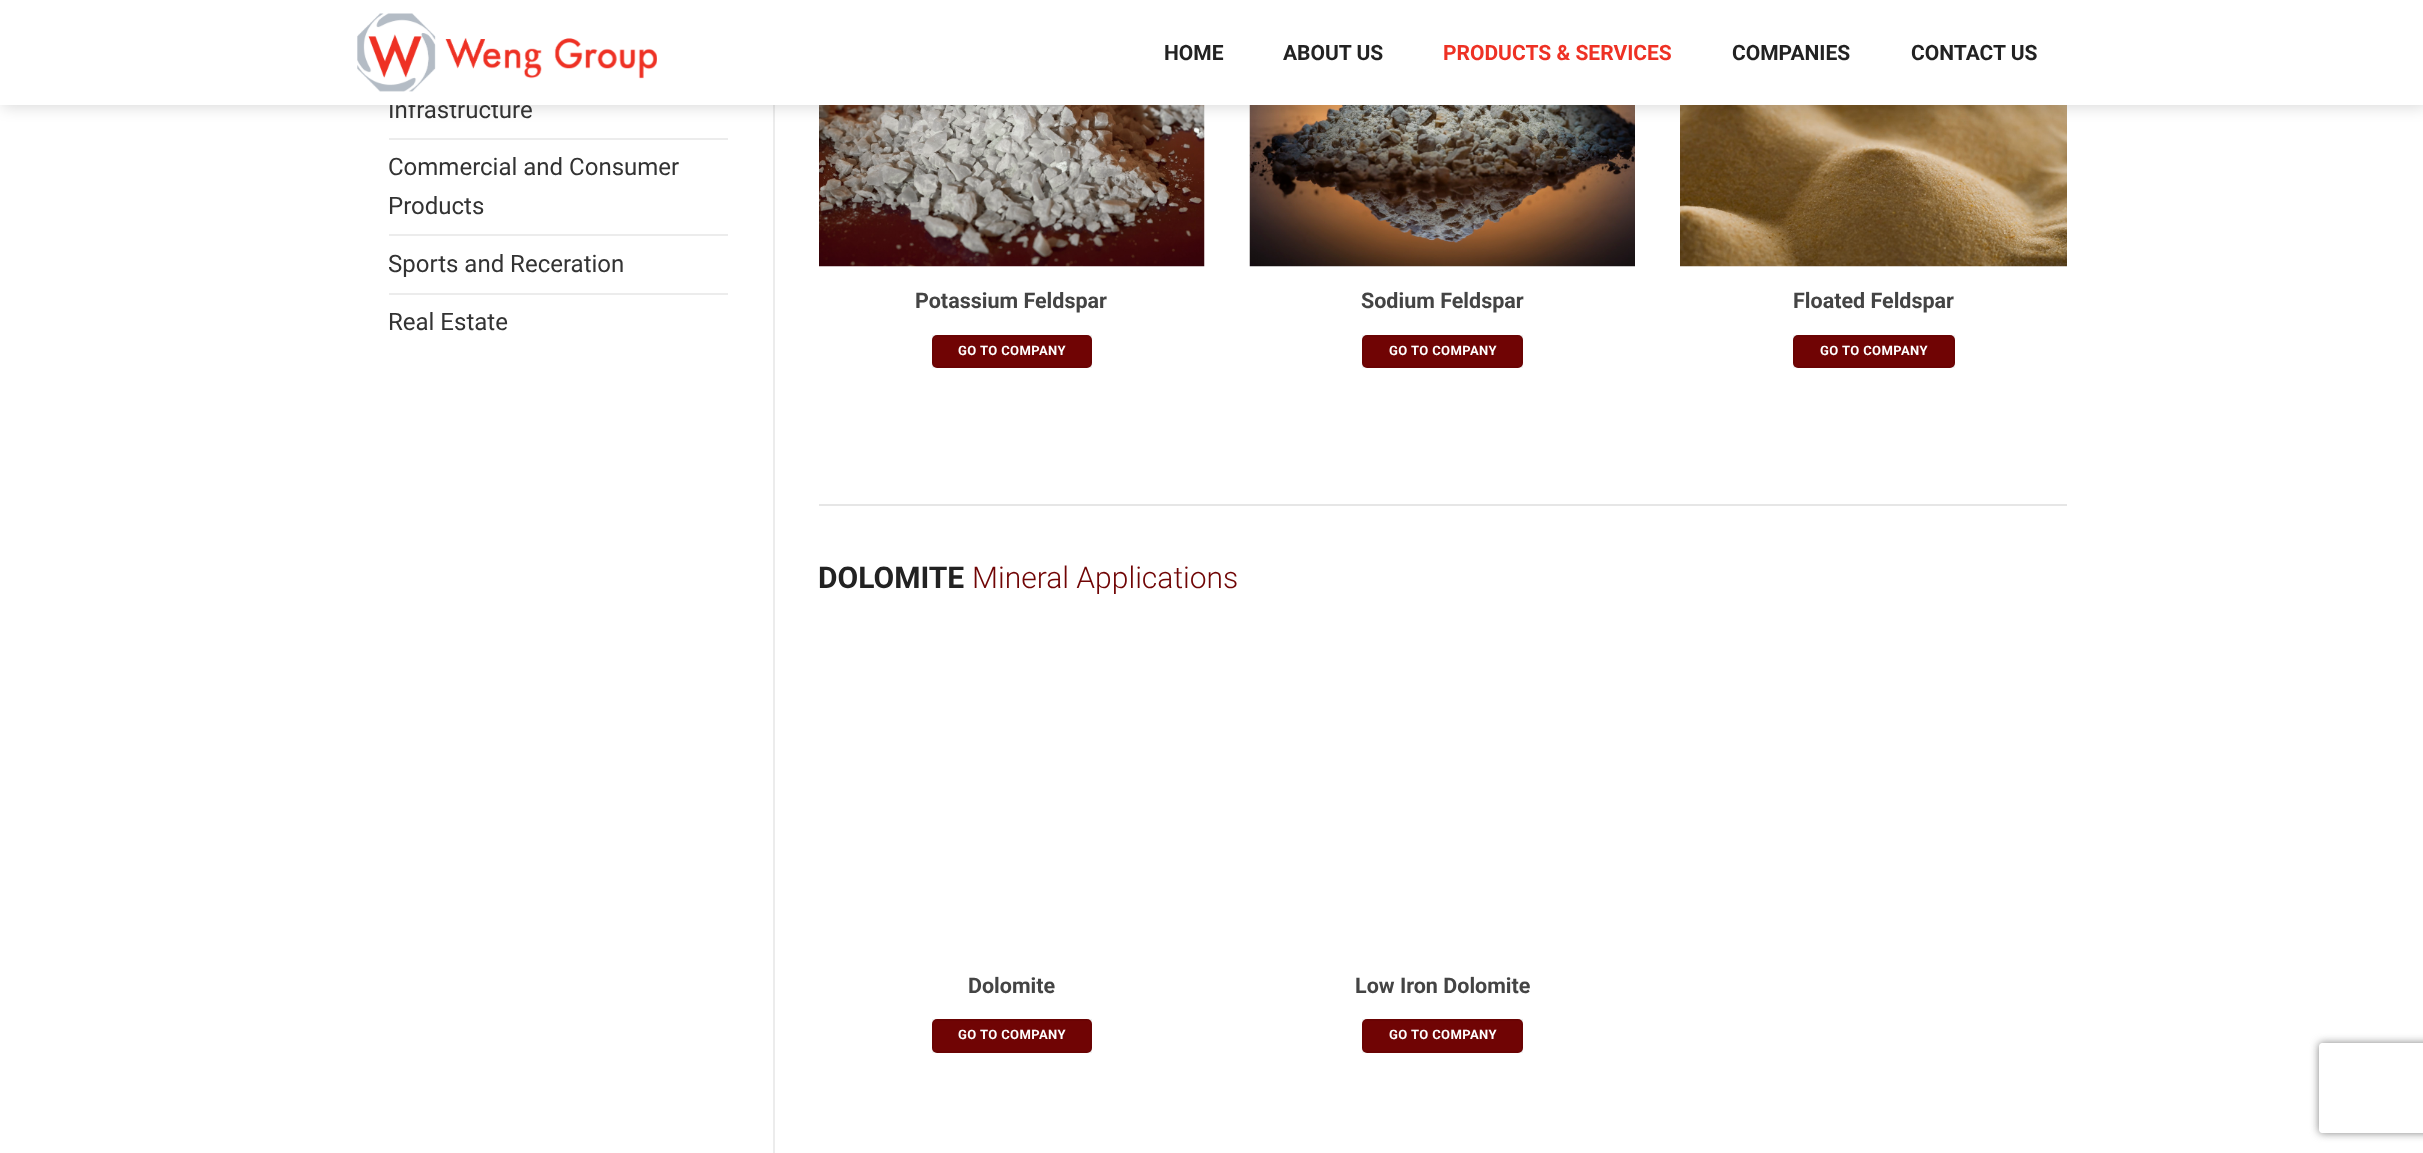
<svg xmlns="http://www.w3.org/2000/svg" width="2423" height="1153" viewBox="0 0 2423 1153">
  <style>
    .t1 { font: 24px Roboto; fill: #333; }
    .t2 { font: bold 21px Roboto; fill: #222; }
    .t3 { font: bold 21px Roboto; fill: #ee3124; }
    .t4 { font: bold 21.5px Roboto; fill: #444; }
    .t5 { font: bold 13px Roboto; letter-spacing: 0.4px; fill: #fff; }
    .t6 { font: bold 30px Roboto; fill: #222; }
    .t7 { font: 300 30px Roboto; fill: #700404; }
  </style>
  <defs>
    <clipPath id="clip1"><path d="M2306 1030H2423V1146H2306ZM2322 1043H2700C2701.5 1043 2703 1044.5 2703 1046V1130C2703 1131.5 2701.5 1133 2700 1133H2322C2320.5 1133 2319 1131.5 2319 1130V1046C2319 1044.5 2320.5 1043 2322 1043Z" clip-rule="evenodd"/></clipPath>
  </defs>
  <rect width="100%" height="100%" fill="#fff"/>
  <rect x="773" y="105" width="2" height="1048" fill="#ececec"/>
  <image x="819" y="105" width="386" height="162" href="images/2.png"/>
  <image x="1249" y="105" width="386" height="162" href="images/3.png"/>
  <image x="1680" y="105" width="387" height="162" href="images/4.png"/>
  <rect x="2" y="2" width="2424" height="105" fill="#00000026" filter="blur(7.5px)"/>
  <text x="388" y="118" class="t1">Infrastructure</text>
  <rect x="0" y="0" width="2423" height="105" fill="#fff"/>
  <image x="357" y="13" width="300" height="79" href="images/1.png"/>
  <text x="1164" y="60" class="t2">HOME</text>
  <text x="1283" y="60" class="t2">ABOUT US</text>
  <text x="1443" y="60" class="t3">PRODUCTS &amp; SERVICES</text>
  <text x="1732" y="60" class="t2">COMPANIES</text>
  <text x="1911" y="60" class="t2">CONTACT US</text>
  <rect x="389" y="138" width="339" height="2" fill="#ececec"/>
  <text x="388" y="175" class="t1">Commercial and Consumer</text>
  <text x="388" y="214" class="t1">Products</text>
  <rect x="389" y="234" width="339" height="2" fill="#ececec"/>
  <text x="388" y="272" class="t1">Sports and Receration</text>
  <rect x="389" y="293" width="339" height="2" fill="#ececec"/>
  <text x="388" y="330" class="t1">Real Estate</text>
  <text x="915" y="308" class="t4">Potassium Feldspar</text>
  <rect x="932" y="335" width="160" height="33" rx="5" fill="#700404"/>
  <rect x="933" y="336" width="158" height="31" fill="none" stroke="#0000000d" stroke-width="2"/>
  <text x="958" y="355" class="t5">GO TO COMPANY</text>
  <text x="1361" y="308" class="t4">Sodium Feldspar</text>
  <rect x="1362" y="335" width="161" height="33" rx="5" fill="#700404"/>
  <rect x="1363" y="336" width="159" height="31" fill="none" stroke="#0000000d" stroke-width="2"/>
  <text x="1389" y="355" class="t5">GO TO COMPANY</text>
  <text x="1793" y="308" class="t4">Floated Feldspar</text>
  <rect x="1793" y="335" width="162" height="33" rx="5" fill="#700404"/>
  <rect x="1794" y="336" width="160" height="31" fill="none" stroke="#0000000d" stroke-width="2"/>
  <text x="1820" y="355" class="t5">GO TO COMPANY</text>
  <rect x="819" y="504" width="1248" height="2" fill="#e6e6e6"/>
  <text x="818" y="588" class="t6">DOLOMITE</text>
  <text x="972" y="588" class="t7">Mineral Applications</text>
  <text x="968" y="993" class="t4">Dolomite</text>
  <rect x="932" y="1019" width="160" height="34" rx="5" fill="#700404"/>
  <rect x="933" y="1020" width="158" height="32" fill="none" stroke="#0000000d" stroke-width="2"/>
  <text x="958" y="1039" class="t5">GO TO COMPANY</text>
  <text x="1355" y="993" class="t4">Low Iron Dolomite</text>
  <rect x="1362" y="1019" width="161" height="34" rx="5" fill="#700404"/>
  <rect x="1363" y="1020" width="159" height="32" fill="none" stroke="#0000000d" stroke-width="2"/>
  <text x="1389" y="1039" class="t5">GO TO COMPANY</text>
  <g clip-path="url(#clip1)">
    <rect x="2319" y="1043" width="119" height="90" rx="3" fill="#808080" filter="blur(4px)"/>
  </g>
</svg>
